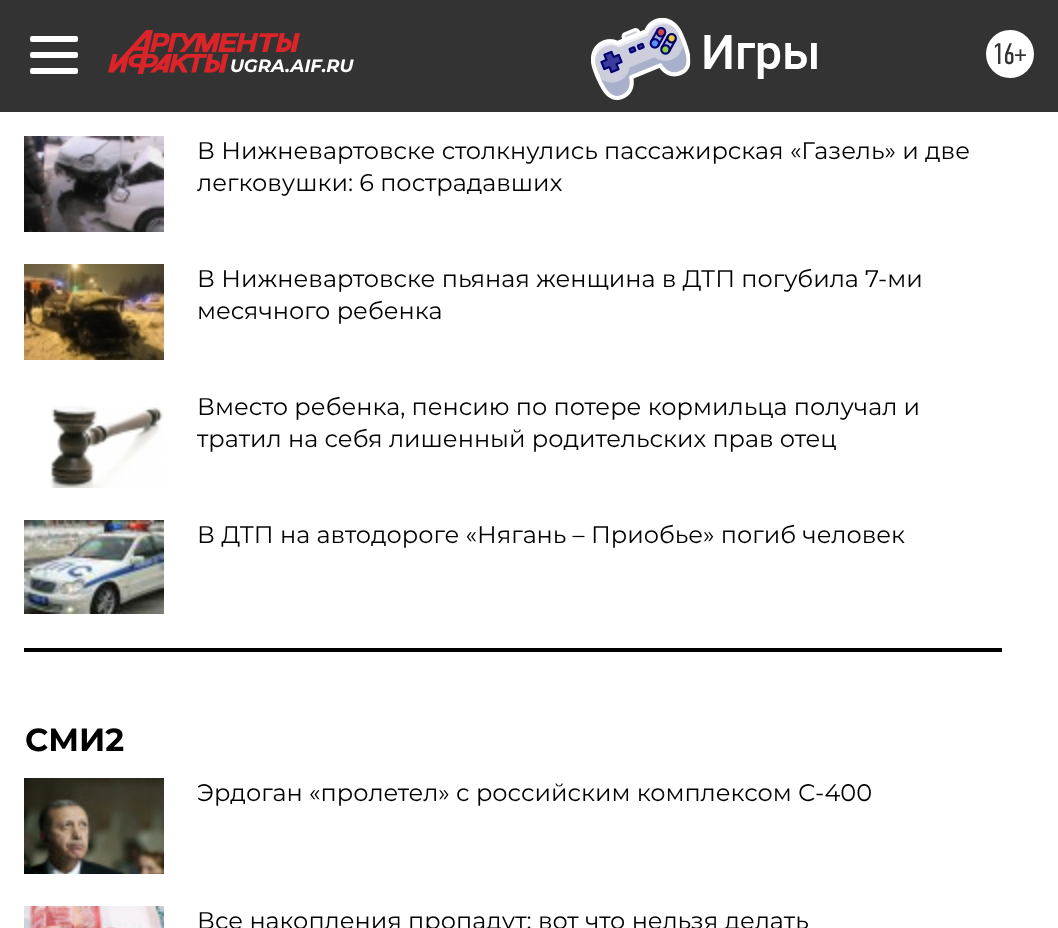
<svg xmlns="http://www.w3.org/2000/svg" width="1058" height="928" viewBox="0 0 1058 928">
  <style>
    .t1 { font: italic bold 18px Montserrat; fill: #fff; }
    .t2 { font: 30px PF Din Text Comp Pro; fill: #333; }
    .t3 { font: 24px Montserrat; fill: #000; }
    .t4 { font: bold 32px Montserrat; fill: #000; }
  </style>
  <rect width="100%" height="100%" fill="#fff"/>
  <rect x="0" y="0" width="1058" height="112" fill="#333"/>
  <rect x="30" y="36" width="48" height="6" rx="2" fill="#fff"/>
  <rect x="30" y="52" width="48" height="6" rx="2" fill="#fff"/>
  <rect x="30" y="68" width="48" height="6" rx="2" fill="#fff"/>
  <image x="108" y="30" width="192" height="44" href="images/1.png"/>
  <text x="230" y="72" class="t1">UGRA.AIF.RU</text>
  <image x="591" y="18" width="226" height="82" href="images/2.png"/>
  <circle cx="1010" cy="54" r="24" fill="#fff"/>
  <text x="992" y="64" class="t2">16+</text>
  <rect x="24" y="648" width="978" height="4" fill="#000"/>
  <image x="24" y="136" width="140" height="96" href="images/3.png"/>
  <text x="197" y="159" class="t3">В Нижневартовске столкнулись пассажирская «Газель» и две</text>
  <text x="197" y="191" class="t3">легковушки: 6 пострадавших</text>
  <image x="24" y="264" width="140" height="96" href="images/4.png"/>
  <text x="197" y="287" class="t3">В Нижневартовске пьяная женщина в ДТП погубила 7-ми</text>
  <text x="197" y="319" class="t3">месячного ребенка</text>
  <image x="49" y="406" width="115" height="82" href="images/5.png"/>
  <text x="197" y="415" class="t3">Вместо ребенка, пенсию по потере кормильца получал и</text>
  <text x="197" y="447" class="t3">тратил на себя лишенный родительских прав отец</text>
  <image x="24" y="520" width="140" height="94" href="images/6.png"/>
  <text x="197" y="543" class="t3">В ДТП на автодороге «Нягань – Приобье» погиб человек</text>
  <text x="25" y="751" class="t4">СМИ2</text>
  <image x="24" y="778" width="140" height="96" href="images/7.png"/>
  <text x="197" y="801" class="t3">Эрдоган «пролетел» с российским комплексом С-400</text>
  <image x="24" y="906" width="140" height="22" href="images/8.png"/>
  <text x="197" y="929" class="t3">Все накопления пропадут: вот что нельзя делать</text>
</svg>
